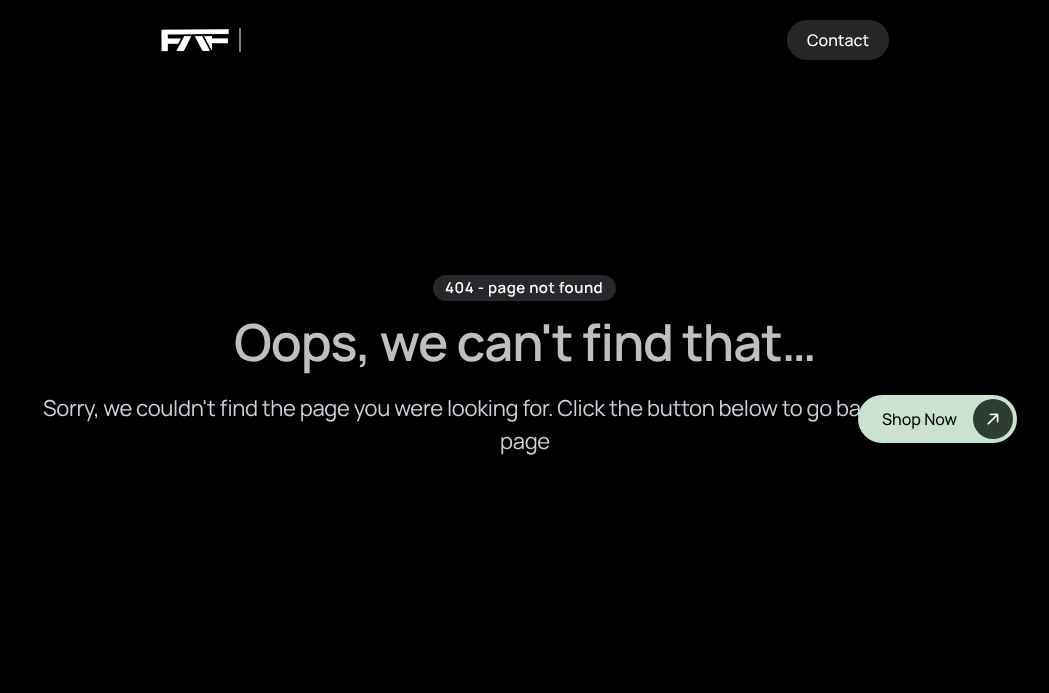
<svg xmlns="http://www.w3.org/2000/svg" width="1049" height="693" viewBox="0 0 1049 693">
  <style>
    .t1 { font: 500 16px Manrope; fill: #fff; }
    .t2 { font: 600 15px Manrope; letter-spacing: 0.5px; fill: #fff; }
    .t3 { font: 600 51px Manrope; letter-spacing: -1px; fill: #bfbfbf; }
    .t4 { font: 22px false; letter-spacing: -0.3px; fill: #d0d1db; }
    .t5 { font: 500 16px Manrope; fill: #000; }
  </style>
  <rect width="100%" height="100%" fill="#000"/>
  <image x="161" y="29" width="68" height="23" href="images/1.png"/>
  <rect x="239" y="28" width="2" height="24" fill="#808080"/>
  <rect x="787" y="20" width="102" height="40" rx="20" fill="#262626"/>
  <text x="807" y="46" class="t1">Contact</text>
  <rect x="433" y="275" width="183" height="26" rx="13" fill="#28282c"/>
  <text x="445" y="293" class="t2">404 - page not found</text>
  <text x="234" y="361" class="t3">Oops, we can't find that…</text>
  <text x="43" y="416" class="t4">Sorry, we couldn't find the page you were looking for. Click the button below to go ba</text>
  <text x="500" y="449" class="t4">page</text>
  <rect x="858" y="395" width="159" height="48" rx="24" fill="#cae3d0"/>
  <text x="882" y="425" class="t5">Shop Now</text>
  <circle cx="993" cy="419" r="20" fill="#2e3d32"/>
  <image x="987" y="413" width="12" height="12" href="images/2.png"/>
</svg>
